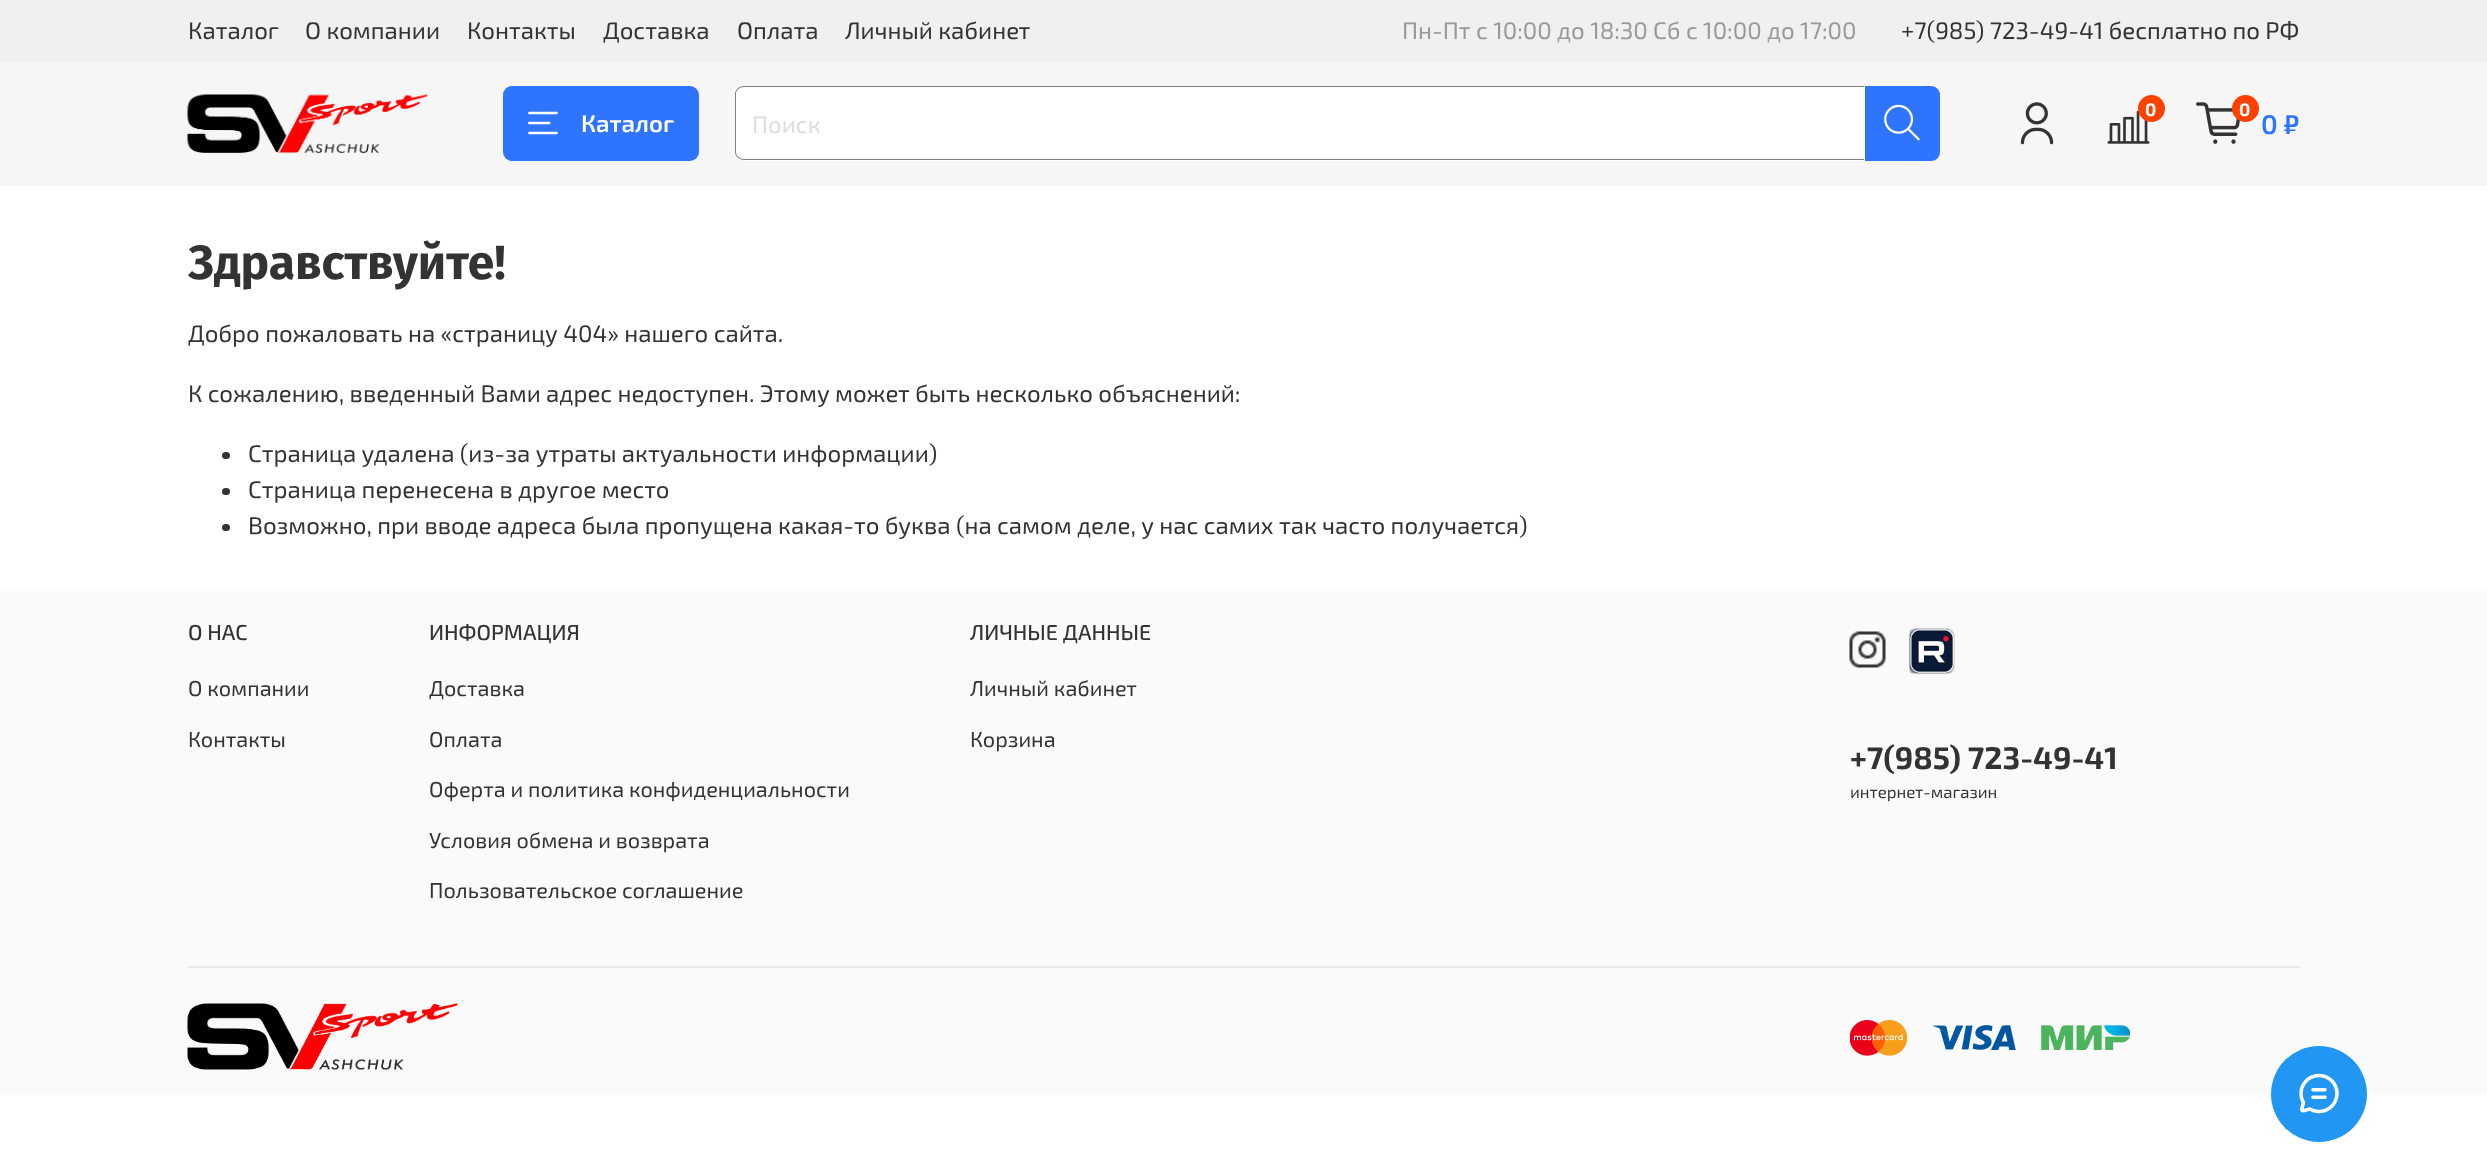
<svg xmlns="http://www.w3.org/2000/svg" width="2487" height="1156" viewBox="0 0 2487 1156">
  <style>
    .t1 { font: 24px 'Exo 2'; fill: #333; }
    .t2 { font: 24px 'Exo 2'; fill: #999; }
    .t3 { font: 600 24px 'Exo 2'; fill: #fff; }
    .t4 { font: 24px 'Exo 2'; fill: #ddd; }
    .t5 { font: bold 18px 'Exo 2'; fill: #fff; }
    .t6 { font: 600 27px 'Exo 2'; fill: #2e74fd; }
    .t7 { font: bold 48px Fira Sans; fill: #333; }
    .t8 { font: 500 21.6px 'Exo 2'; fill: #333; }
    .t9 { font: 21.6px 'Exo 2'; fill: #333; }
    .t10 { font: bold 31.25px 'Exo 2'; fill: #333; }
    .t11 { font: 16.75px 'Exo 2'; fill: #333; }
  </style>
  <rect width="100%" height="100%" fill="#fff"/>
  <rect x="0" y="0" width="2487" height="62" fill="#f1efef"/>
  <text x="188" y="39" class="t1">Каталог</text>
  <text x="305" y="39" class="t1">О компании</text>
  <text x="467" y="39" class="t1">Контакты</text>
  <text x="603" y="39" class="t1">Доставка</text>
  <text x="737" y="39" class="t1">Оплата</text>
  <text x="845" y="39" class="t1">Личный кабинет</text>
  <text x="1402" y="39" class="t2">Пн-Пт с 10:00 до 18:30 Сб с 10:00 до 17:00</text>
  <text x="1901" y="39" class="t1">+7(985) 723-49-41 бесплатно по РФ</text>
  <rect x="0" y="62" width="2487" height="124" fill="#f7f6f6"/>
  <image x="187" y="94" width="241" height="59" href="images/1.png"/>
  <rect x="503" y="86" width="196" height="75" rx="9" fill="#2e74fd"/>
  <image x="528" y="111" width="30" height="24" href="images/2.png"/>
  <text x="581" y="132" class="t3">Каталог</text>
  <path d="M744 86H1865V161H744C739 161 735 157 735 152V95C735 90 739 86 744 86Z" fill="#fff"/>
  <path d="M744 86H1864V160H744C739 160 735 156 735 152V94C735 90 739 86 744 86ZM744 87H1864V159H744C740 159 736 156 736 152V94C736 90 740 87 744 87Z" fill="#808080" fill-rule="evenodd"/>
  <text x="752" y="133" class="t4">Поиск</text>
  <path d="M1865 86H1931C1936 86 1940 90 1940 95V152C1940 157 1936 161 1931 161H1865Z" fill="#2e74fd"/>
  <image x="1884" y="104" width="36" height="37" href="images/3.png"/>
  <image x="2020" y="102" width="34" height="43" href="images/4.png"/>
  <image x="2107" y="110" width="43" height="34" href="images/5.png"/>
  <circle cx="2151.5" cy="108.5" r="13.5" fill="#ff4100"/>
  <text x="2145" y="116" class="t5">0</text>
  <image x="2196" y="102" width="44" height="42" href="images/6.png"/>
  <circle cx="2245.5" cy="108.5" r="13.5" fill="#ff4100"/>
  <text x="2239" y="116" class="t5">0</text>
  <text x="2261" y="134" class="t6">0 ₽</text>
  <text x="188" y="279" class="t7">Здравствуйте!</text>
  <text x="188" y="342" class="t1">Добро пожаловать на «страницу 404» нашего сайта.</text>
  <text x="188" y="402" class="t1">К сожалению, введенный Вами адрес недоступен. Этому может быть несколько объяснений:</text>
  <rect x="222" y="452" width="8" height="7" rx="3.5" fill="#333"/>
  <text x="248" y="462" class="t1">Страница удалена (из-за утраты актуальности информации)</text>
  <rect x="222" y="488" width="8" height="7" rx="3.5" fill="#333"/>
  <text x="248" y="498" class="t1">Страница перенесена в другое место</text>
  <rect x="222" y="524" width="8" height="7" rx="3.5" fill="#333"/>
  <text x="248" y="534" class="t1">Возможно, при вводе адреса была пропущена какая-то буква (на самом деле, у нас самих так часто получается)</text>
  <rect x="0" y="591" width="2487" height="504" fill="#fafafa"/>
  <text x="188" y="640" class="t8">О НАС</text>
  <text x="188" y="696" class="t9">О компании</text>
  <text x="188" y="747" class="t9">Контакты</text>
  <text x="429" y="640" class="t8">ИНФОРМАЦИЯ</text>
  <text x="429" y="696" class="t9">Доставка</text>
  <text x="429" y="747" class="t9">Оплата</text>
  <text x="429" y="797" class="t9">Оферта и политика конфиденциальности</text>
  <text x="429" y="848" class="t9">Условия обмена и возврата</text>
  <text x="429" y="898" class="t9">Пользовательское соглашение</text>
  <text x="970" y="640" class="t8">ЛИЧНЫЕ ДАННЫЕ</text>
  <text x="970" y="696" class="t9">Личный кабинет</text>
  <text x="970" y="747" class="t9">Корзина</text>
  <image x="1849" y="631" width="37" height="37" href="images/7.png"/>
  <image x="1909" y="628" width="46" height="46" href="images/8.png"/>
  <text x="1850" y="769" class="t10">+7(985) 723-49-41</text>
  <text x="1850" y="798" class="t11">интернет-магазин</text>
  <rect x="188" y="966" width="2112" height="2" fill="#e8e8e8"/>
  <image x="187" y="1003" width="271" height="67" href="images/9.png"/>
  <image x="1850" y="1020" width="58" height="36" href="images/10.png"/>
  <image x="1932" y="1025" width="84" height="25" href="images/11.png"/>
  <image x="2041" y="1025" width="89" height="25" href="images/12.png"/>
  <circle cx="2319" cy="1094" r="48" fill="#2196f3"/>
  <image x="2299" y="1073" width="40" height="41" href="images/13.png"/>
</svg>
